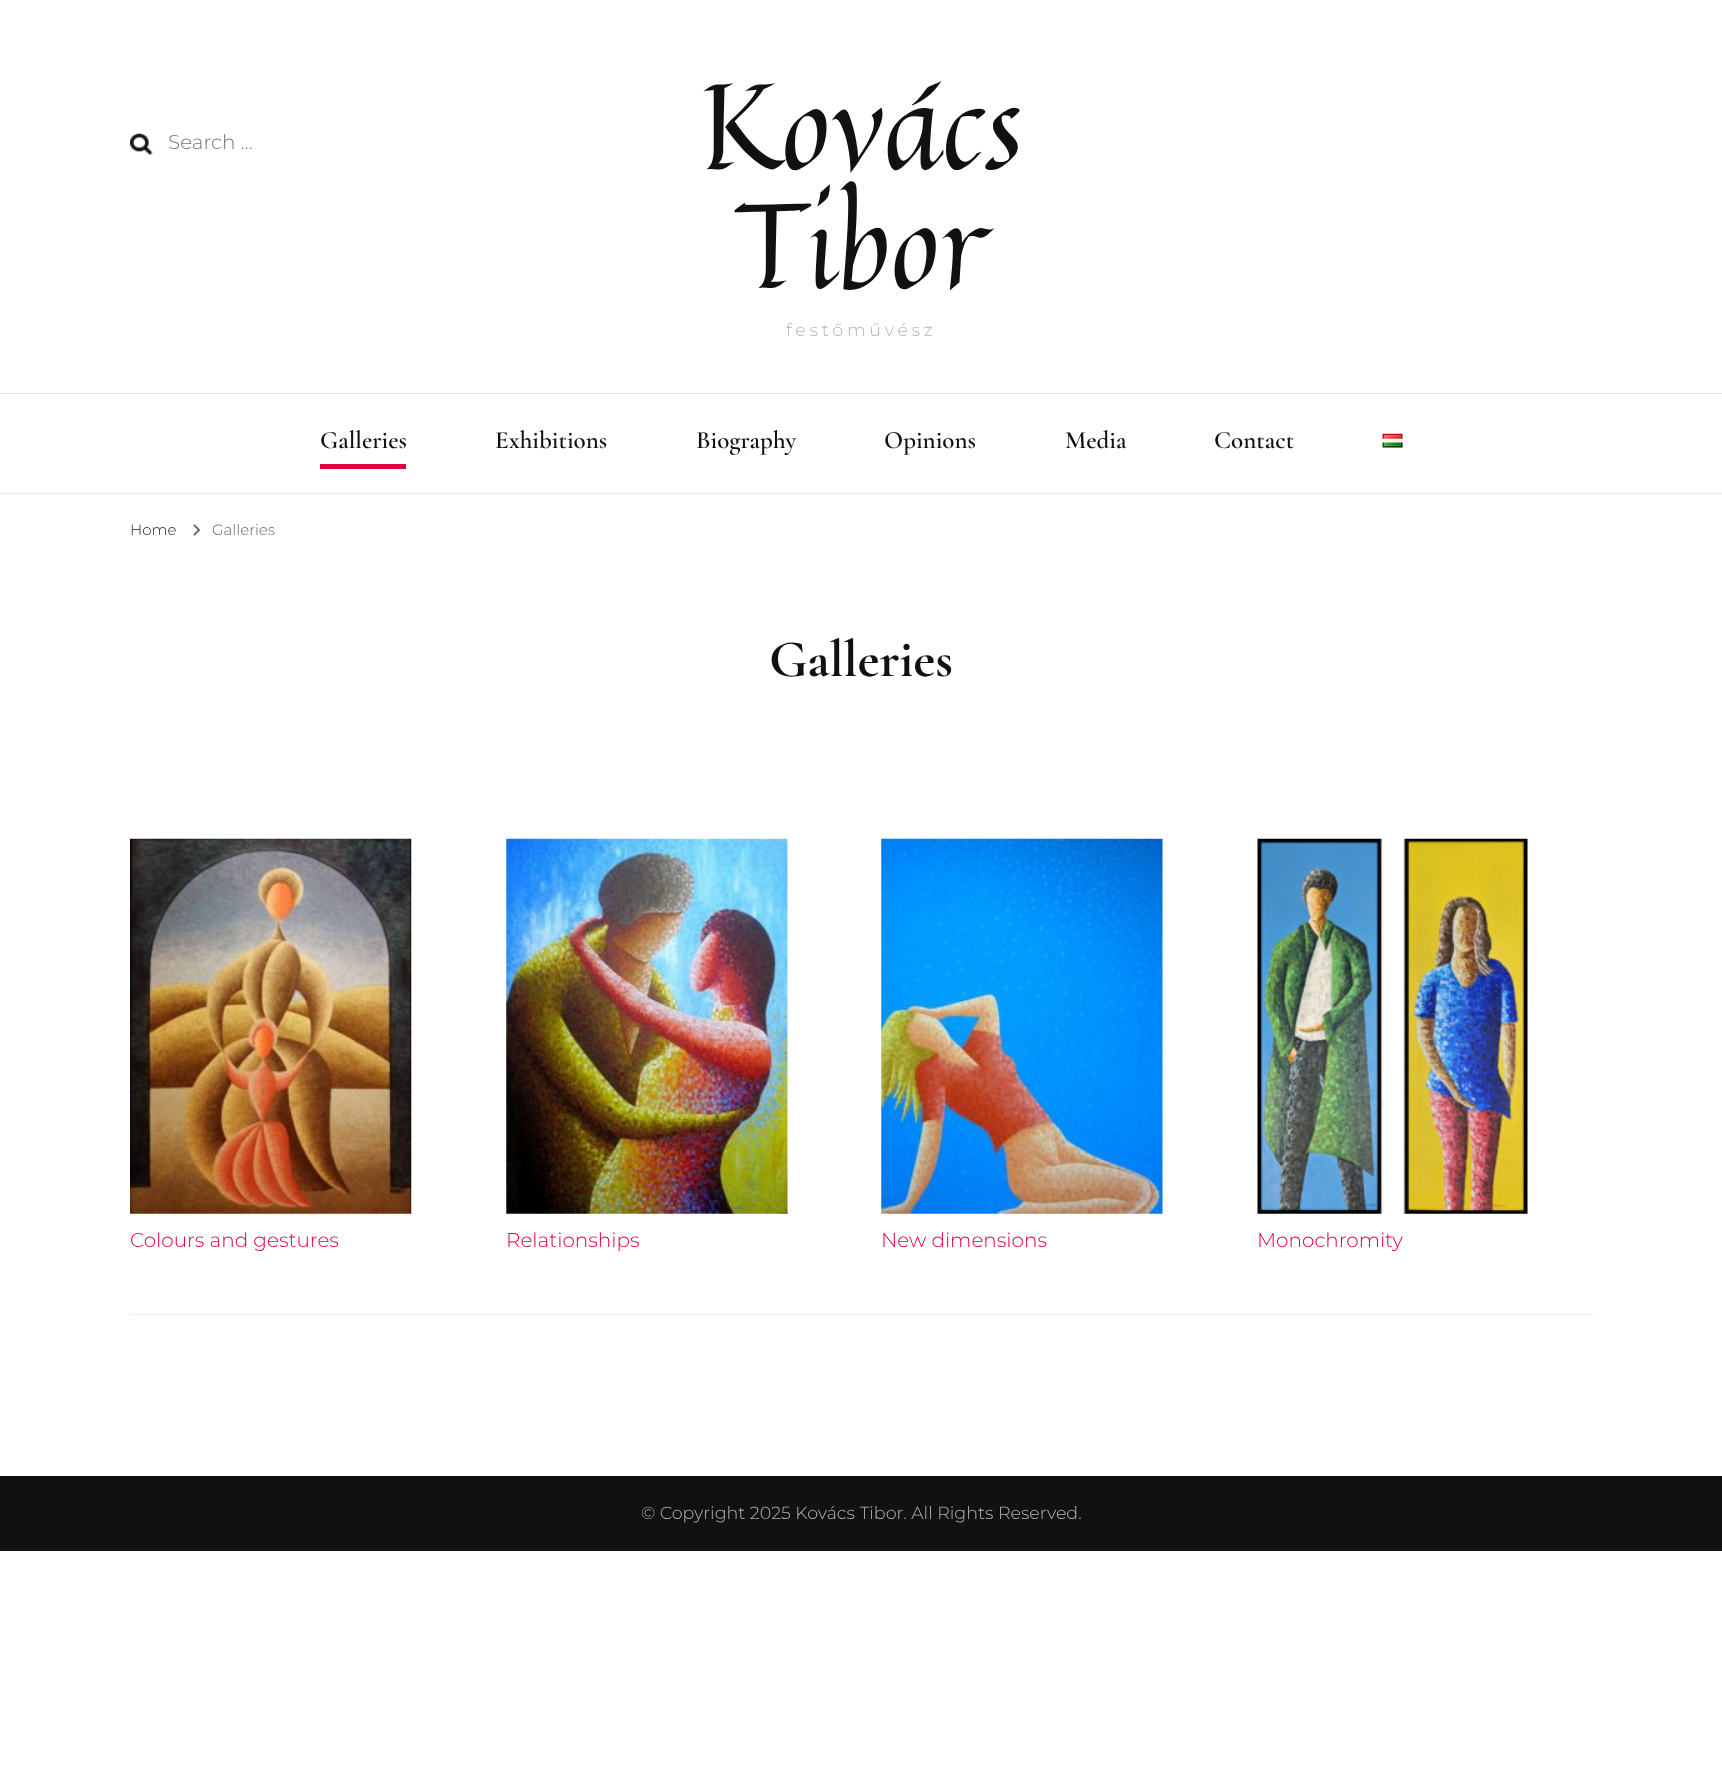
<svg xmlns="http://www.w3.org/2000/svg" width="1722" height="1781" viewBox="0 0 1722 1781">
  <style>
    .t1 { font: 300 20px Montserrat; fill: #757575; }
    .t2 { font: 119px Quintessential; fill: #111; }
    .t3 { font: 300 17.5px Montserrat; letter-spacing: 3.75px; fill: #b5b5b5; }
    .t4 { font: 600 25px Cormorant Garamond; fill: #111; }
    .t5 { font: 300 15px Montserrat; fill: #222; }
    .t6 { font: 300 15px Montserrat; fill: #666; }
    .t7 { font: bold 52.5px Cormorant Garamond; fill: #111; }
    .t8 { font: 300 20px Montserrat; fill: #e2003c; }
    .t9 { font: 300 17.5px Montserrat; fill: #b5b5b5; }
  </style>
  <rect width="100%" height="100%" fill="#fff"/>
  <image x="130" y="133" width="23" height="22" href="images/1.png"/>
  <text x="168" y="149" class="t1">Search …</text>
  <text x="700" y="169" class="t2">Kovács</text>
  <text x="736" y="288" class="t2">Tibor</text>
  <text x="786" y="336" class="t3">festőművész</text>
  <rect x="0" y="393" width="1722" height="1" fill="#e5e5e5"/>
  <rect x="0" y="493" width="1722" height="1" fill="#e5e5e5"/>
  <text x="320" y="448" class="t4">Galleries</text>
  <rect x="320" y="464" width="86" height="5" fill="#e2003c"/>
  <text x="495" y="448" class="t4">Exhibitions</text>
  <text x="696" y="448" class="t4">Biography</text>
  <text x="884" y="448" class="t4">Opinions</text>
  <text x="1065" y="448" class="t4">Media</text>
  <text x="1214" y="448" class="t4">Contact</text>
  <image x="1382" y="433" width="21" height="15" href="images/2.png"/>
  <text x="130" y="535" class="t5">Home</text>
  <image x="193" y="524" width="7" height="12" href="images/3.png"/>
  <text x="212" y="535" class="t6">Galleries</text>
  <text x="769" y="676" class="t7">Galleries</text>
  <image x="130" y="838" width="282" height="376" href="images/4.png"/>
  <text x="130" y="1247" class="t8">Colours and gestures</text>
  <image x="506" y="838" width="282" height="376" href="images/5.png"/>
  <text x="506" y="1247" class="t8">Relationships</text>
  <image x="881" y="838" width="282" height="376" href="images/6.png"/>
  <text x="881" y="1247" class="t8">New dimensions</text>
  <image x="1257" y="838" width="271" height="376" href="images/7.png"/>
  <text x="1257" y="1247" class="t8">Monochromity</text>
  <rect x="130" y="1314" width="1463" height="1" fill="#eee"/>
  <rect x="0" y="1476" width="1722" height="75" fill="#111"/>
  <text x="641" y="1519" class="t9">© Copyright 2025 Kovács Tibor. All Rights Reserved.</text>
</svg>
